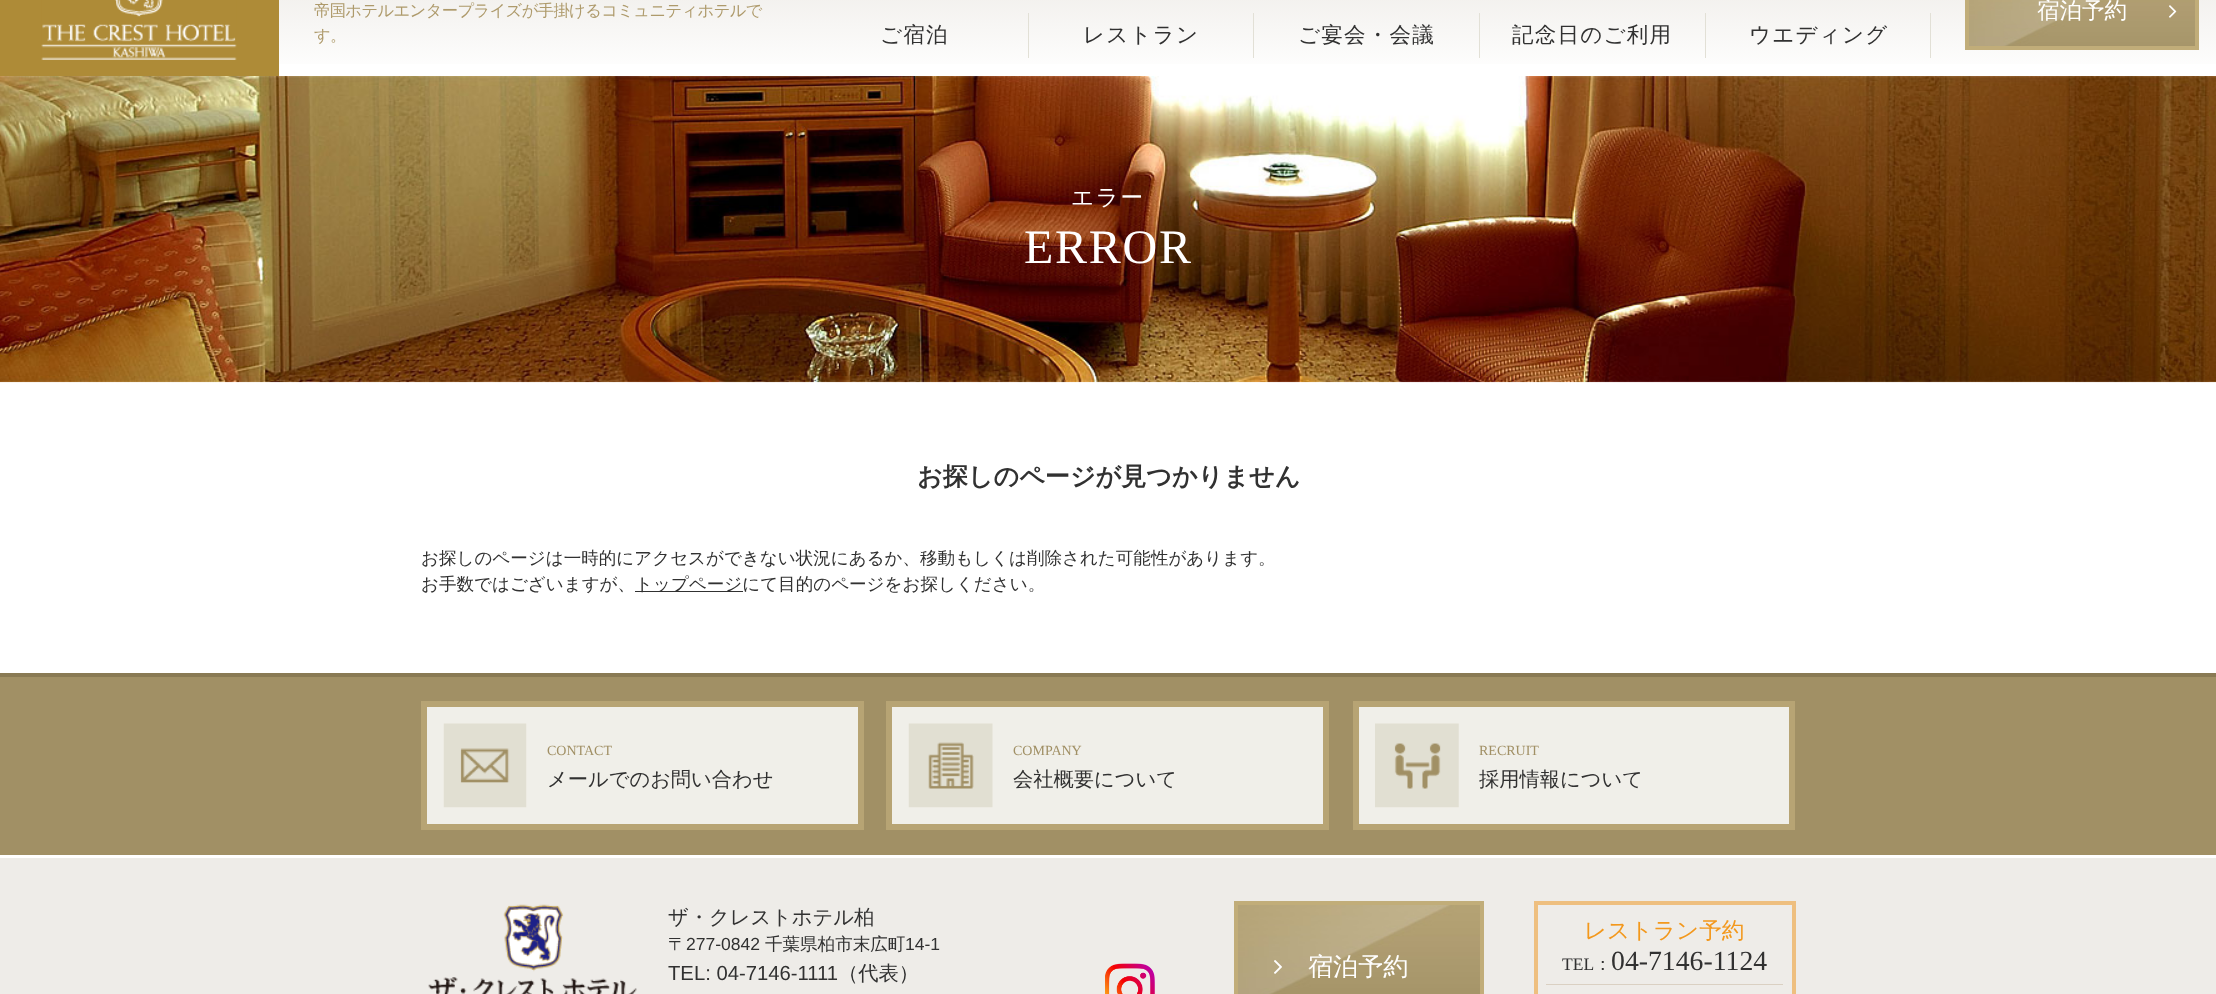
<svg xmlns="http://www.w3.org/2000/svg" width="2216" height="994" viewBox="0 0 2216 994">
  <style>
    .t1 { font: 500 16.3px WenQuanYi Zen Hei; letter-spacing: -0.6px; fill: #ae9a6b; }
    .t2 { font: 500 21.5px WenQuanYi Zen Hei; letter-spacing: 1.25px; fill: #313131; }
    .t3 { font: 500 22.5px WenQuanYi Zen Hei; fill: #fff; }
    .t4 { font: 500 22.5px WenQuanYi Zen Hei; letter-spacing: 1.75px; fill: #fff; }
    .t5 { font: 48px Liberation Serif; letter-spacing: 1.75px; fill: #fff; }
    .t6 { font: bold 25.1px WenQuanYi Zen Hei; fill: #313131; }
    .t7 { font: 500 17.55px WenQuanYi Zen Hei; fill: #313131; }
    .t8 { font: 14px Liberation Serif; fill: #a19065; }
    .t9 { font: 500 20.25px WenQuanYi Zen Hei; fill: #313131; }
    .t10 { font: 17.55px Liberation Sans; fill: #313131; }
    .t11 { font: 20.25px Liberation Sans; fill: #313131; }
    .t12 { font: 500 25.1px WenQuanYi Zen Hei; fill: #fff; }
    .t13 { font: 500 22.5px WenQuanYi Zen Hei; fill: #f3981c; }
    .t14 { font: 17.55px Liberation Serif; fill: #313131; }
    .t15 { font: 27.75px Liberation Serif; fill: #313131; }
  </style>
  <defs>
    <linearGradient id="g1" gradientUnits="userSpaceOnUse" x1="1108" y1="-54" x2="1108" y2="76"><stop offset="0" stop-color="#ebe8e3"/><stop offset="1" stop-color="#fff"/></linearGradient>
  </defs>
  <rect width="100%" height="100%" fill="#fff"/>
  <rect x="279" y="0" width="1937" height="64" fill="url(#g1)"/>
  <rect x="0" y="0" width="279" height="76" fill="#ae8b37"/>
  <image x="41" y="0" width="196" height="60" href="images/1.png"/>
  <text x="314" y="16" class="t1">帝国ホテルエンタープライズが手掛けるコミュニティホテルで</text>
  <text x="314" y="41" class="t1">す。</text>
  <rect x="1028" y="13" width="1" height="45" fill="#e2e0d6"/>
  <text x="880" y="42" class="t2">ご宿泊</text>
  <rect x="1253" y="13" width="1" height="45" fill="#e2e0d6"/>
  <text x="1083" y="42" class="t2">レストラン</text>
  <rect x="1479" y="13" width="1" height="45" fill="#e2e0d6"/>
  <text x="1298" y="42" class="t2">ご宴会・会議</text>
  <rect x="1705" y="13" width="1" height="45" fill="#e2e0d6"/>
  <text x="1512" y="42" class="t2">記念日のご利用</text>
  <rect x="1930" y="13" width="1" height="45" fill="#e2e0d6"/>
  <text x="1749" y="42" class="t2">ウエディング</text>
  <image x="1969" y="0" width="226" height="46" href="images/2.png"/>
  <rect x="1967" y="-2" width="230" height="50" fill="none" stroke="#c1ad79" stroke-width="4"/>
  <text x="2037" y="18" class="t3">宿泊予約</text>
  <image x="2169" y="5" width="8" height="13" href="images/3.png"/>
  <image x="0" y="76" width="2216" height="307" href="images/4.png"/>
  <text x="1071" y="205" class="t4">エラー</text>
  <text x="1024" y="263" class="t5">ERROR</text>
  <text x="917" y="485" class="t6">お探しのページが見つかりません</text>
  <text x="421" y="564" class="t7">お探しのページは一時的にアクセスができない状況にあるか、移動もしくは削除された可能性があります。</text>
  <text x="421" y="590" class="t7">お手数ではございますが、</text>
  <rect x="635" y="591" width="108" height="1" fill="#313131"/>
  <text x="635" y="590" class="t7">トップページにて目的のページをお探しください。</text>
  <rect x="0" y="677" width="2216" height="178" fill="#a19065"/>
  <rect x="0" y="673" width="2216" height="4" fill="#897a54"/>
  <rect x="424" y="704" width="437" height="123" fill="#f0efe9" stroke="#b7a474" stroke-width="6"/>
  <image x="443" y="723" width="84" height="85" href="images/5.png"/>
  <text x="547" y="755" class="t8">CONTACT</text>
  <text x="547" y="786" class="t9">メールでのお問い合わせ</text>
  <rect x="889" y="704" width="437" height="123" fill="#f0efe9" stroke="#b7a474" stroke-width="6"/>
  <image x="908" y="723" width="85" height="85" href="images/6.png"/>
  <text x="1013" y="755" class="t8">COMPANY</text>
  <text x="1013" y="786" class="t9">会社概要について</text>
  <rect x="1356" y="704" width="436" height="123" fill="#f0efe9" stroke="#b7a474" stroke-width="6"/>
  <image x="1375" y="723" width="84" height="85" href="images/7.png"/>
  <text x="1479" y="755" class="t8">RECRUIT</text>
  <text x="1479" y="786" class="t9">採用情報について</text>
  <rect x="0" y="858" width="2216" height="136" fill="#eeece8"/>
  <image x="428" y="904" width="209" height="90" href="images/8.png"/>
  <text x="668" y="924" class="t9">ザ・クレストホテル柏</text>
  <text x="668" y="950" class="t7">〒</text>
  <text x="686" y="950" class="t10">277-0842</text>
  <text x="765" y="950" class="t7">千葉県柏市末広町</text>
  <text x="905" y="950" class="t10">14-1</text>
  <text x="668" y="980" class="t11">TEL: 04-7146-1111</text>
  <text x="838" y="980" class="t9">（代表）</text>
  <image x="1105" y="963" width="50" height="31" href="images/9.png"/>
  <image x="1238" y="905" width="242" height="89" href="images/10.png"/>
  <rect x="1236" y="903" width="246" height="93" fill="none" stroke="#c1ad79" stroke-width="4"/>
  <image x="1274" y="960" width="8" height="14" href="images/11.png"/>
  <text x="1308" y="975" class="t12">宿泊予約</text>
  <rect x="1536" y="903" width="258" height="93" fill="none" stroke="#eebf7f" stroke-width="4"/>
  <text x="1584" y="938" class="t13">レストラン予約</text>
  <text x="1562" y="970" class="t14">TEL</text>
  <text x="1594" y="970" class="t7">：</text>
  <text x="1611" y="970" class="t15">04-7146-1124</text>
  <rect x="1546" y="984" width="237" height="1" fill="#dad0c2"/>
</svg>
